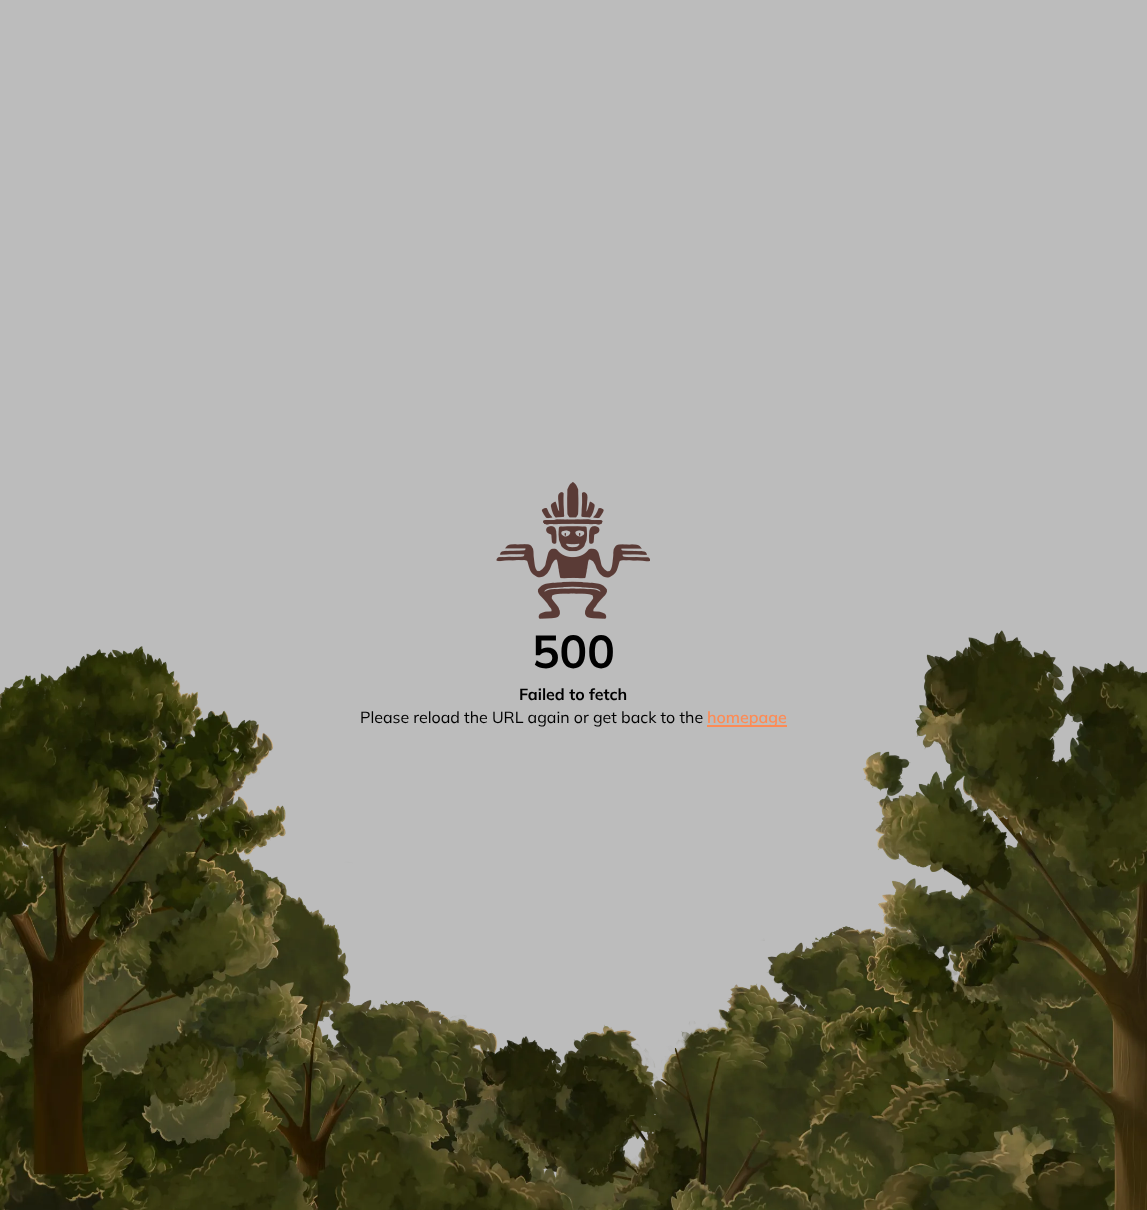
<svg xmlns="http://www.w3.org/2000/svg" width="1147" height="1210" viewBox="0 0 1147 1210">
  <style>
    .t1 { font: bold 46px Mulish; fill: #000; }
    .t2 { font: bold 16px Mulish; fill: #000; }
    .t3 { font: 16px Mulish; fill: #000; }
    .t4 { font: 600 16px Mulish; fill: #fd8b55; }
  </style>
  <rect width="100%" height="100%" fill="#bcbcbc"/>
  <image x="0" y="630" width="1147" height="580" href="images/1.png"/>
  <image x="496" y="482" width="154" height="137" href="images/2.png"/>
  <text x="532" y="668" class="t1">500</text>
  <text x="519" y="700" class="t2">Failed to fetch</text>
  <text x="360" y="723" class="t3">Please reload the URL again or get back to the</text>
  <rect x="707" y="725" width="80" height="2" fill="#fd8b55"/>
  <text x="707" y="723" class="t4">homepage</text>
</svg>
